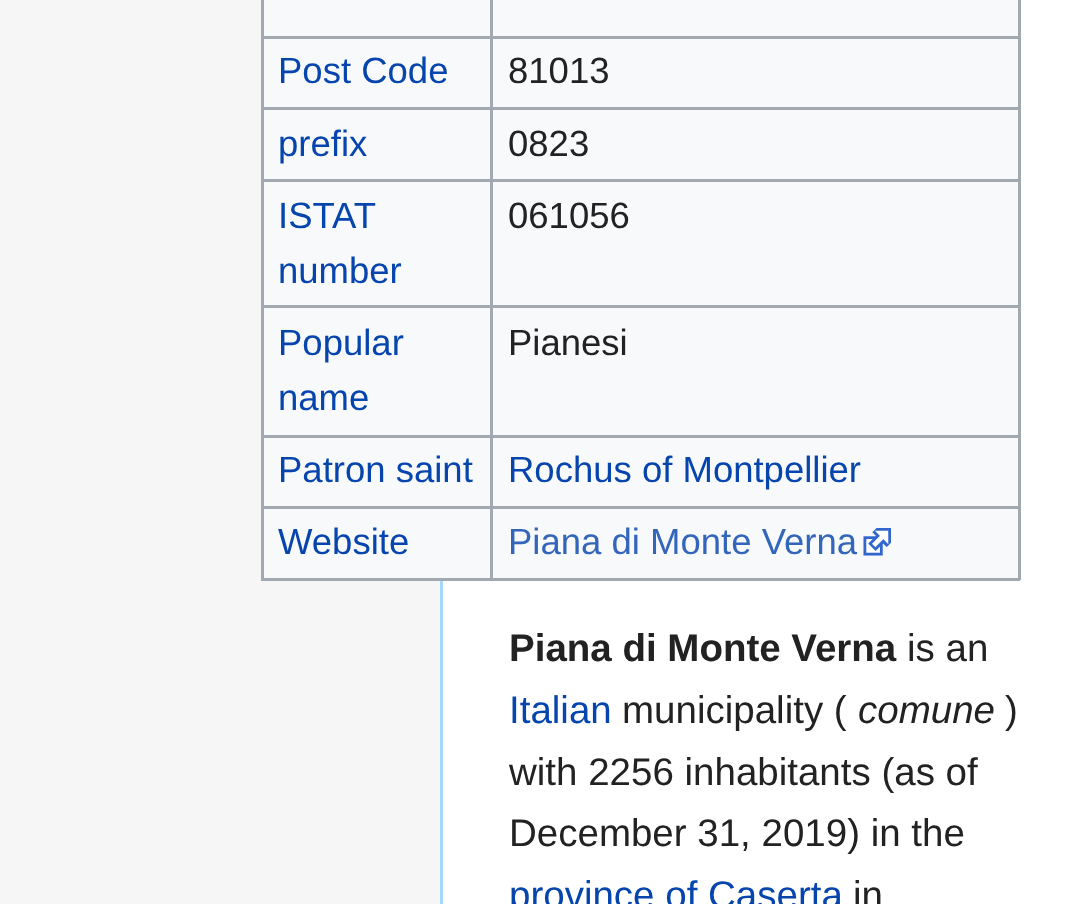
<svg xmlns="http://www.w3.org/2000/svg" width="1084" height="904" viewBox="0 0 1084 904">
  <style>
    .t1 { font: 36.5px Liberation Sans; fill: #0645ad; }
    .t2 { font: 36.5px Liberation Sans; fill: #222; }
    .t3 { font: 36.5px Liberation Sans; fill: #36b; }
    .t4 { font: bold 38.5px Liberation Sans; fill: #222; }
    .t5 { font: 38.5px Liberation Sans; fill: #222; }
    .t6 { font: 38.5px Liberation Sans; fill: #0645ad; }
    .t7 { font: italic 38.5px Liberation Sans; fill: #222; }
  </style>
  <rect width="100%" height="100%" fill="#f6f6f6"/>
  <rect x="443" y="0" width="641" height="904" fill="#fff"/>
  <rect x="440" y="581" width="3" height="323" fill="#a7d7f9"/>
  <rect x="264" y="0" width="754" height="578" fill="#f8f9fa"/>
  <rect x="1018" y="0" width="3" height="580" fill="#a2a9b1"/>
  <rect x="261" y="578" width="759" height="3" fill="#a2a9b1"/>
  <rect x="261" y="0" width="3" height="580" fill="#a2a9b1"/>
  <rect x="490" y="36" width="530" height="3" fill="#a2a9b1"/>
  <rect x="490" y="107" width="530" height="3" fill="#a2a9b1"/>
  <rect x="490" y="179" width="530" height="3" fill="#a2a9b1"/>
  <rect x="490" y="305" width="530" height="3" fill="#a2a9b1"/>
  <rect x="490" y="435" width="530" height="3" fill="#a2a9b1"/>
  <rect x="490" y="506" width="530" height="3" fill="#a2a9b1"/>
  <rect x="490" y="506" width="3" height="74" fill="#a2a9b1"/>
  <rect x="261" y="506" width="231" height="3" fill="#a2a9b1"/>
  <rect x="490" y="435" width="3" height="74" fill="#a2a9b1"/>
  <rect x="261" y="435" width="231" height="3" fill="#a2a9b1"/>
  <rect x="490" y="305" width="3" height="132" fill="#a2a9b1"/>
  <rect x="261" y="305" width="231" height="3" fill="#a2a9b1"/>
  <rect x="490" y="179" width="3" height="129" fill="#a2a9b1"/>
  <rect x="261" y="179" width="231" height="3" fill="#a2a9b1"/>
  <rect x="490" y="107" width="3" height="75" fill="#a2a9b1"/>
  <rect x="261" y="107" width="231" height="3" fill="#a2a9b1"/>
  <rect x="490" y="36" width="3" height="74" fill="#a2a9b1"/>
  <rect x="261" y="36" width="231" height="3" fill="#a2a9b1"/>
  <rect x="490" y="0" width="3" height="39" fill="#a2a9b1"/>
  <text x="278" y="83" class="t1">Post Code</text>
  <text x="508" y="83" class="t2">81013</text>
  <text x="278" y="156" class="t1">prefix</text>
  <text x="508" y="156" class="t2">0823</text>
  <text x="278" y="228" class="t1">ISTAT</text>
  <text x="278" y="283" class="t1">number</text>
  <text x="508" y="228" class="t2">061056</text>
  <text x="278" y="355" class="t1">Popular</text>
  <text x="278" y="410" class="t1">name</text>
  <text x="508" y="355" class="t2">Pianesi</text>
  <text x="278" y="482" class="t1">Patron saint</text>
  <text x="508" y="482" class="t1">Rochus of Montpellier</text>
  <text x="278" y="554" class="t1">Website</text>
  <text x="508" y="554" class="t3">Piana di Monte Verna</text>
  <image x="863" y="528" width="28" height="28" href="images/1.png"/>
  <text x="509" y="661" class="t4">Piana di Monte Verna</text>
  <text x="907" y="661" class="t5">is an</text>
  <text x="509" y="723" class="t6">Italian</text>
  <text x="622" y="723" class="t5">municipality (</text>
  <text x="858" y="723" class="t7">comune</text>
  <text x="1005" y="723" class="t5">)</text>
  <text x="509" y="785" class="t5">with 2256 inhabitants (as of</text>
  <text x="509" y="846" class="t5">December 31, 2019) in the</text>
  <text x="509" y="908" class="t6">province of Caserta</text>
  <text x="853" y="908" class="t5">in</text>
</svg>
